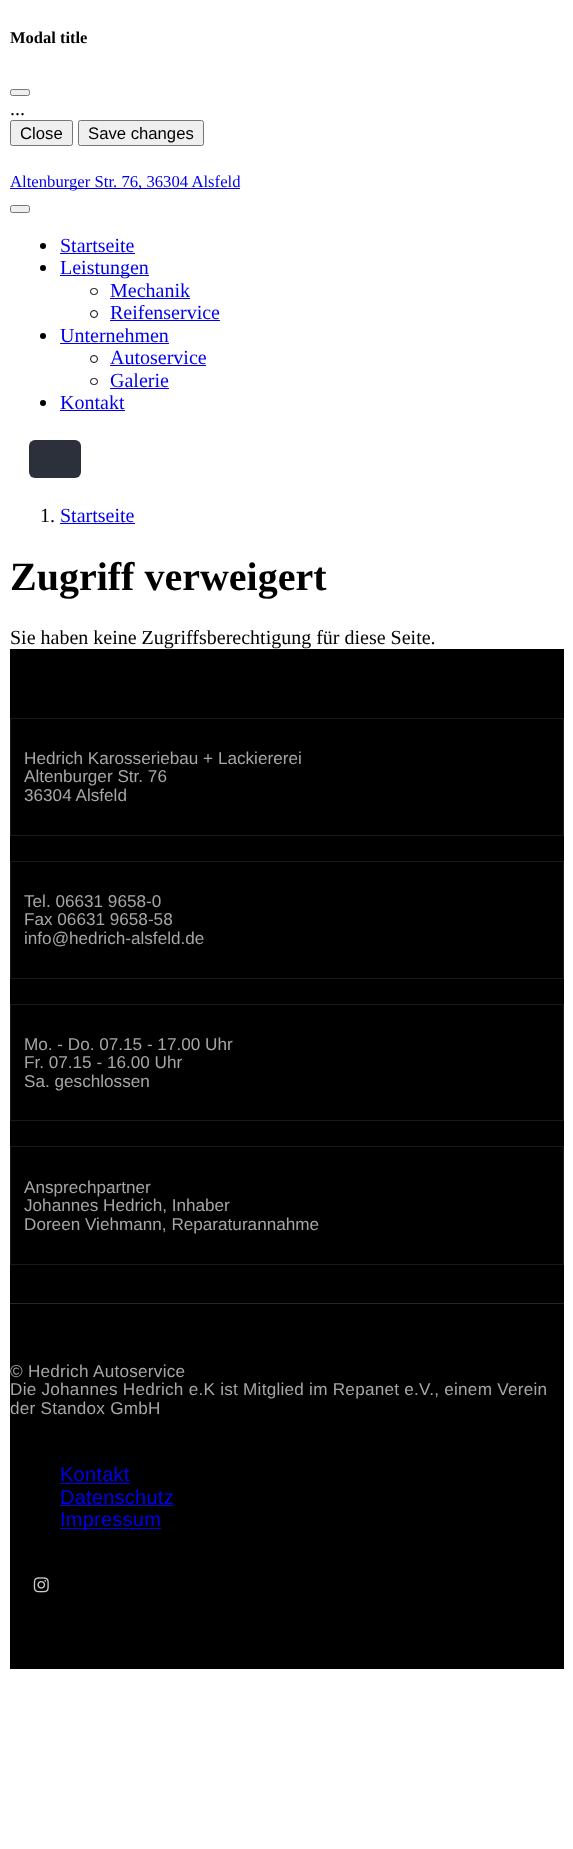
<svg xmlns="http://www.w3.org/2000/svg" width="573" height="1849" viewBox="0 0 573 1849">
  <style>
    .t1 { font: bold 16.5px Liberation Serif; fill: #000; }
    .t2 { font: 20px Liberation Serif; fill: #000; }
    .t3 { font: 16.7px Liberation Sans; fill: #000; }
    .t4 { font: 16.7px Liberation Serif; fill: #00e; }
    .t5 { font: 20px Liberation Serif; fill: #00e; }
    .t6 { font: bold 40px Liberation Serif; fill: #000; }
    .t7 { font: 17.15px Liberation Sans; fill: #a6a6a6; }
    .t8 { font: 17.15px Liberation Sans; letter-spacing: 0.25px; fill: #a6a6a6; }
    .t9 { font: 20px Liberation Sans; letter-spacing: 0.25px; fill: #00e; }
  </style>
  <rect width="100%" height="100%" fill="#fff"/>
  <text x="10" y="43" class="t1">Modal title</text>
  <rect x="10.5" y="89.5" width="19" height="6" rx="2" fill="#efefef" stroke="#767676"/>
  <text x="10" y="115" class="t2">...</text>
  <rect x="10.5" y="120.5" width="62" height="25" rx="2" fill="#efefef" stroke="#767676"/>
  <text x="20" y="139" class="t3">Close</text>
  <rect x="78.5" y="120.5" width="125" height="25" rx="2" fill="#efefef" stroke="#767676"/>
  <text x="88" y="139" class="t3">Save changes</text>
  <rect x="10" y="188" width="230" height="1" fill="#00e"/>
  <text x="10" y="187" class="t4">Altenburger Str. 76, 36304 Alsfeld</text>
  <rect x="10.5" y="205.5" width="19" height="7" rx="2" fill="#efefef" stroke="#767676"/>
  <circle cx="43" cy="246" r="3" fill="#000"/>
  <text x="60" y="252" class="t5">Startseite</text>
  <rect x="60" y="253" width="75" height="1" fill="#00e"/>
  <circle cx="43" cy="268" r="3" fill="#000"/>
  <rect x="60" y="275" width="89" height="1" fill="#00e"/>
  <text x="60" y="274" class="t5">Leistungen</text>
  <rect x="90.5" y="288.5" width="7" height="6" rx="3" fill="none" stroke="#000"/>
  <text x="110" y="297" class="t5">Mechanik</text>
  <rect x="110" y="298" width="80" height="1" fill="#00e"/>
  <circle cx="94" cy="314" r="3.5" fill="none" stroke="#000"/>
  <text x="110" y="319" class="t5">Reifenservice</text>
  <rect x="110" y="320" width="110" height="1" fill="#00e"/>
  <circle cx="43" cy="336" r="3" fill="#000"/>
  <text x="60" y="342" class="t5">Unternehmen</text>
  <rect x="60" y="343" width="109" height="1" fill="#00e"/>
  <circle cx="94" cy="359" r="3.5" fill="none" stroke="#000"/>
  <text x="110" y="364" class="t5">Autoservice</text>
  <rect x="110" y="365" width="96" height="1" fill="#00e"/>
  <rect x="90.5" y="378.5" width="7" height="6" rx="3" fill="none" stroke="#000"/>
  <text x="110" y="387" class="t5">Galerie</text>
  <rect x="110" y="388" width="59" height="1" fill="#00e"/>
  <circle cx="43" cy="403" r="3" fill="#000"/>
  <text x="60" y="409" class="t5">Kontakt</text>
  <rect x="60" y="410" width="65" height="1" fill="#00e"/>
  <rect x="29" y="440" width="52" height="38" rx="6" fill="#2b303b"/>
  <text x="40" y="522" class="t2">1.</text>
  <text x="60" y="522" class="t5">Startseite</text>
  <rect x="60" y="523" width="75" height="1" fill="#00e"/>
  <text x="10" y="590" class="t6">Zugriff verweigert</text>
  <text x="10" y="644" class="t2">Sie haben keine Zugriffsberechtigung für diese Seite.</text>
  <rect x="10" y="649" width="554" height="1020" fill="#000"/>
  <rect x="10.5" y="718.5" width="553" height="117" fill="none" stroke="#1a1a1a"/>
  <text x="24" y="764" class="t7">Hedrich Karosseriebau + Lackiererei</text>
  <text x="24" y="782" class="t7">Altenburger Str. 76</text>
  <text x="24" y="801" class="t7">36304 Alsfeld</text>
  <rect x="10.5" y="861.5" width="553" height="117" fill="none" stroke="#1a1a1a"/>
  <text x="24" y="907" class="t7">Tel. 06631 9658-0</text>
  <text x="24" y="925" class="t7">Fax 06631 9658-58</text>
  <text x="24" y="944" class="t7">info@hedrich-alsfeld.de</text>
  <rect x="10.5" y="1004.5" width="553" height="116" fill="none" stroke="#1a1a1a"/>
  <text x="24" y="1050" class="t7">Mo. - Do. 07.15 - 17.00 Uhr</text>
  <text x="24" y="1068" class="t7">Fr. 07.15 - 16.00 Uhr</text>
  <text x="24" y="1087" class="t7">Sa. geschlossen</text>
  <rect x="10.5" y="1146.5" width="553" height="118" fill="none" stroke="#1a1a1a"/>
  <text x="24" y="1193" class="t7">Ansprechpartner</text>
  <text x="24" y="1211" class="t7">Johannes Hedrich, Inhaber</text>
  <text x="24" y="1230" class="t7">Doreen Viehmann, Reparaturannahme</text>
  <rect x="10" y="1303" width="554" height="1" fill="#262626"/>
  <text x="10" y="1377" class="t8">© Hedrich</text>
  <text x="93" y="1377" class="t8">Autoservice</text>
  <text x="10" y="1395" class="t8">Die Johannes Hedrich e.K ist Mitglied im Repanet e.V., einem Verein</text>
  <text x="10" y="1414" class="t8">der Standox GmbH</text>
  <text x="60" y="1481" class="t9">Kontakt</text>
  <rect x="60" y="1483" width="70" height="1" fill="#00e"/>
  <text x="60" y="1504" class="t9">Datenschutz</text>
  <rect x="60" y="1505" width="114" height="1" fill="#00e"/>
  <rect x="60" y="1528" width="101" height="1" fill="#00e"/>
  <text x="60" y="1526" class="t9">Impressum</text>
  <image x="33" y="1577" width="16" height="16" href="images/1.png"/>
</svg>
